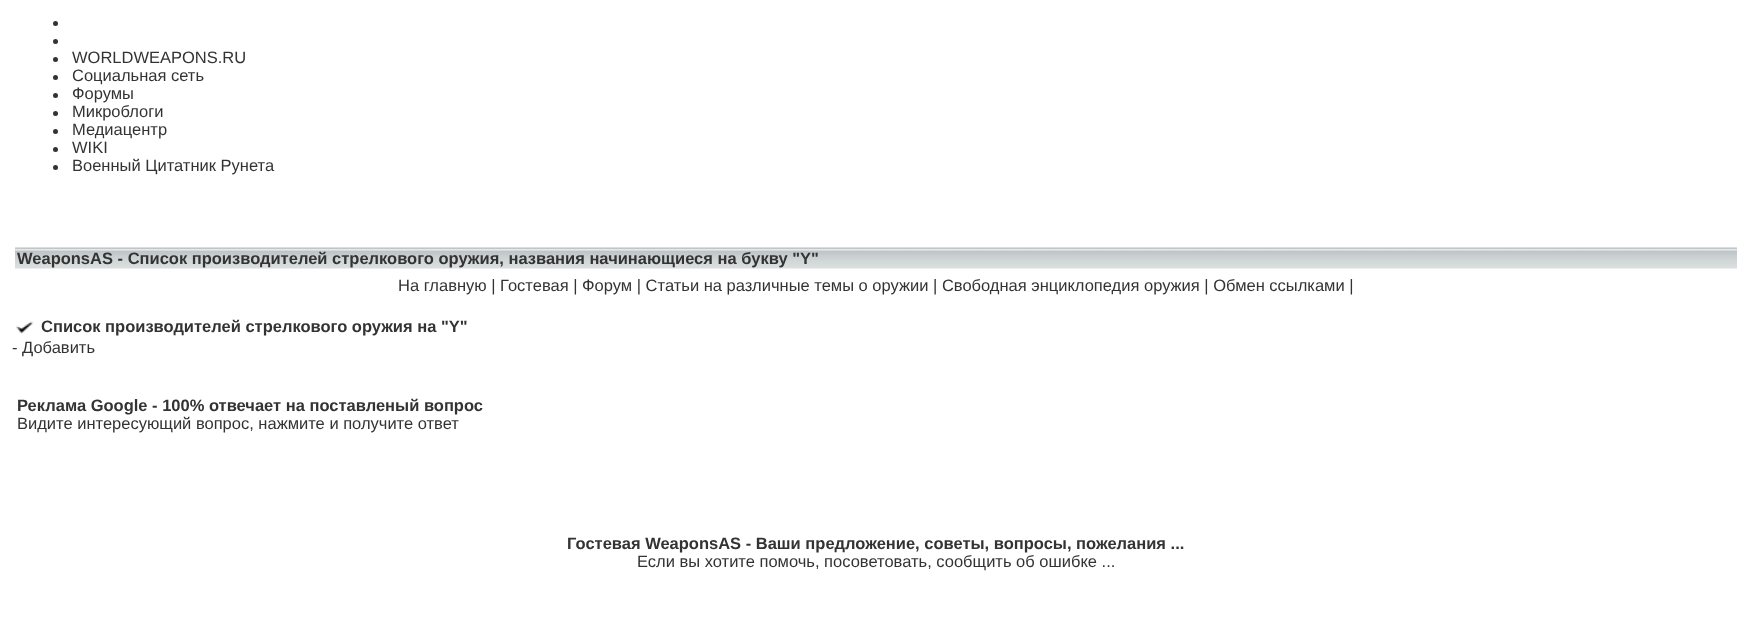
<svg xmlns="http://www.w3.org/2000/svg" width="1752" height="641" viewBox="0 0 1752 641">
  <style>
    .t1 { font: 16.5px Liberation Sans; fill: #333; }
    .t2 { font: bold 16.5px Liberation Sans; fill: #333; }
  </style>
  <rect width="100%" height="100%" fill="#fff"/>
  <circle cx="55.5" cy="23.5" r="2.5" fill="#333"/>
  <circle cx="55.5" cy="41.5" r="2.5" fill="#333"/>
  <circle cx="55.5" cy="59.5" r="2.5" fill="#333"/>
  <text x="72" y="63" class="t1">WORLDWEAPONS.RU</text>
  <circle cx="55.5" cy="77.5" r="2.5" fill="#333"/>
  <text x="72" y="81" class="t1">Социальная сеть</text>
  <circle cx="55.5" cy="95.5" r="2.5" fill="#333"/>
  <text x="72" y="99" class="t1">Форумы</text>
  <circle cx="55.5" cy="113.5" r="2.5" fill="#333"/>
  <text x="72" y="117" class="t1">Микроблоги</text>
  <circle cx="55.5" cy="131.5" r="2.5" fill="#333"/>
  <text x="72" y="135" class="t1">Медиацентр</text>
  <circle cx="55.5" cy="149.5" r="2.5" fill="#333"/>
  <text x="72" y="153" class="t1">WIKI</text>
  <circle cx="55.5" cy="167.5" r="2.5" fill="#333"/>
  <text x="72" y="171" class="t1">Военный Цитатник Рунета</text>
  <image x="15" y="247" width="1722" height="22" href="images/1.png"/>
  <text x="17" y="264" class="t2">WeaponsAS - Список производителей стрелкового оружия, названия начинающиеся на букву "Y"</text>
  <text x="398" y="291" class="t1">На главную | Гостевая | Форум | Статьи на различные темы о оружии | Свободная энциклопедия оружия | Обмен ссылками |</text>
  <image x="16" y="321" width="18" height="13" href="images/2.png"/>
  <text x="41" y="332" class="t2">Список производителей стрелкового оружия на "Y"</text>
  <text x="12" y="353" class="t1">- Добавить</text>
  <text x="17" y="411" class="t2">Реклама Google - 100% отвечает на поставленый вопрос</text>
  <text x="17" y="429" class="t1">Видите интересующий вопрос, нажмите и получите ответ</text>
  <text x="567" y="549" class="t2">Гостевая WeaponsAS - Ваши предложение, советы, вопросы, пожелания ...</text>
  <text x="637" y="567" class="t1">Если вы хотите помочь, посоветовать, сообщить об ошибке ...</text>
</svg>
